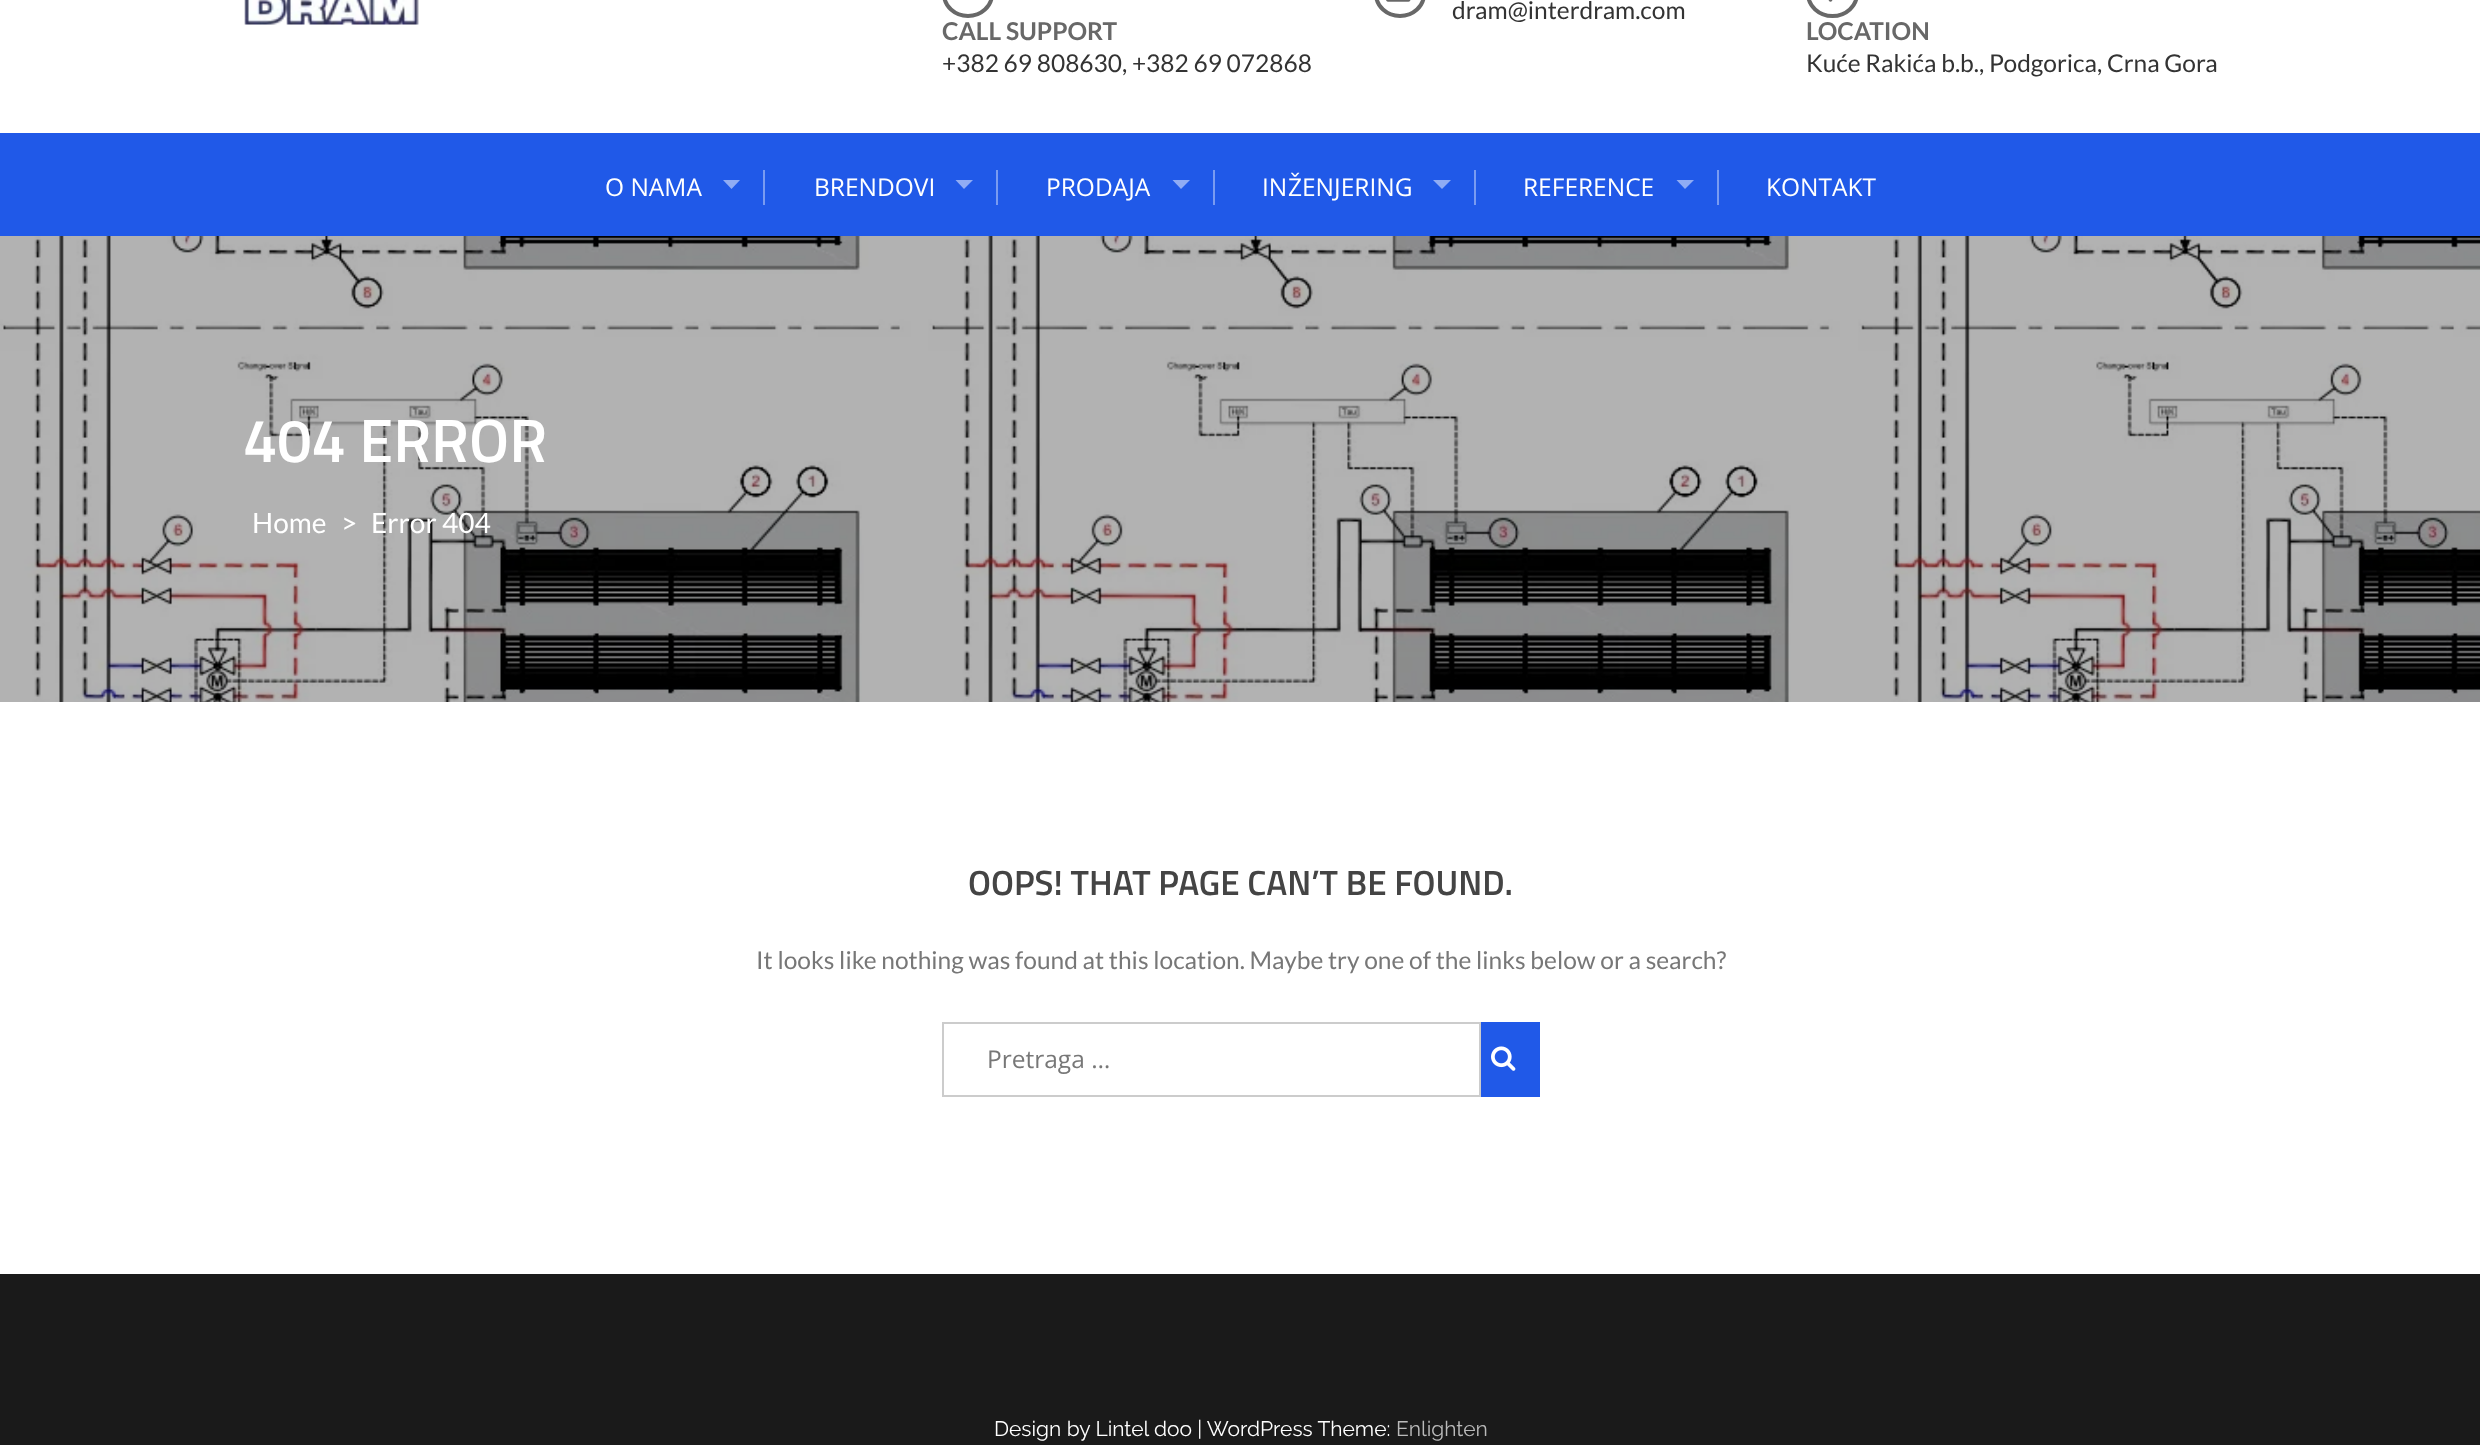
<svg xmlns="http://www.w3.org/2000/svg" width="2480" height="1445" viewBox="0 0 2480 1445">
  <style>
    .t1 { font: 24.5px Lato; fill: #333; }
    .t2 { font: bold 24.5px Lato; fill: #686868; }
    .t3 { font: 24.5px Open Sans; fill: #fff; }
    .t4 { font: 24.5px 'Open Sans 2'; fill: #fff; }
    .t5 { font: 600 61.25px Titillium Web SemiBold; fill: #fff; }
    .t6 { font: 28px Lato; fill: #fff; }
    .t7 { font: 600 35px Titillium Web SemiBold; fill: #444; }
    .t8 { font: 24.5px Lato; fill: #777; }
    .t9 { font: 24.5px Open Sans; fill: #777; }
    .t10 { font: 21px Raleway; fill: #fff; }
    .t11 { font: 21px Raleway; fill: #bababa; }
  </style>
  <rect width="100%" height="100%" fill="#fff"/>
  <image x="0" y="236" width="2480" height="466" href="images/1.png"/>
  <image x="244" y="0" width="175" height="25" href="images/2.png"/>
  <rect x="1376" y="-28" width="48" height="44" rx="24" fill="none" stroke="#686868" stroke-width="4"/>
  <image x="1386" y="0" width="25" height="2" href="images/3.png"/>
  <text x="1452" y="19" class="t1">dram@interdram.com</text>
  <rect x="944" y="-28" width="48" height="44" rx="24" fill="none" stroke="#686868" stroke-width="4"/>
  <text x="942" y="40" class="t2">CALL SUPPORT</text>
  <text x="942" y="72" class="t1">+382 69 808630, +382 69 072868</text>
  <rect x="1808" y="-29" width="49" height="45" rx="24.5" fill="none" stroke="#686868" stroke-width="4"/>
  <image x="1828" y="0" width="5" height="2" href="images/4.png"/>
  <text x="1806" y="40" class="t2">LOCATION</text>
  <text x="1806" y="72" class="t1">Kuće Rakića b.b., Podgorica, Crna Gora</text>
  <rect x="0" y="133" width="2480" height="103" fill="#2059e8"/>
  <rect x="763" y="170" width="2" height="35" fill="#799bf1"/>
  <text x="605" y="196" class="t3">O NAMA</text>
  <path d="M723 180H740L731.5 189Z" fill="#90acf4"/>
  <rect x="996" y="170" width="2" height="35" fill="#799bf1"/>
  <text x="814" y="196" class="t3">BRENDOVI</text>
  <path d="M955.5 180H973L964 189Z" fill="#90acf4"/>
  <rect x="1213" y="170" width="2" height="35" fill="#799bf1"/>
  <text x="1046" y="196" class="t3">PRODAJA</text>
  <path d="M1172.5 180H1190L1181 189Z" fill="#90acf4"/>
  <rect x="1474" y="170" width="2" height="35" fill="#799bf1"/>
  <text x="1262" y="196" class="t3">IN</text>
  <text x="1288" y="196" class="t4">Ž</text>
  <text x="1302" y="196" class="t3">ENJERING</text>
  <path d="M1433 180H1451L1442 189Z" fill="#90acf4"/>
  <rect x="1717" y="170" width="2" height="35" fill="#799bf1"/>
  <text x="1523" y="196" class="t3">REFERENCE</text>
  <path d="M1676.5 180H1694L1685 189Z" fill="#90acf4"/>
  <text x="1766" y="196" class="t3">KONTAKT</text>
  <rect x="0" y="236" width="2480" height="466" fill="#0000004d"/>
  <text x="243" y="462" class="t5">404 ERROR</text>
  <text x="252" y="533" class="t6">Home</text>
  <text x="341" y="533" class="t6">&gt;</text>
  <text x="371" y="533" class="t6">Error 404</text>
  <text x="968" y="895" class="t7">OOPS! THAT PAGE CAN’T BE FOUND.</text>
  <text x="756" y="969" class="t8">It looks like nothing was found at this location. Maybe try one of the links below or a search?</text>
  <rect x="1481" y="1022" width="59" height="75" fill="#2059e8"/>
  <rect x="943" y="1023" width="537" height="73" fill="none" stroke="#ccc" stroke-width="2"/>
  <text x="987" y="1068" class="t9">Pretraga …</text>
  <image x="1491" y="1046" width="25" height="25" href="images/5.png"/>
  <rect x="0" y="1274" width="2480" height="171" fill="#1a1a1a"/>
  <text x="994" y="1436" class="t10">Design by Lintel doo | WordPress Theme:</text>
  <text x="1396" y="1436" class="t11">Enlighten</text>
</svg>
